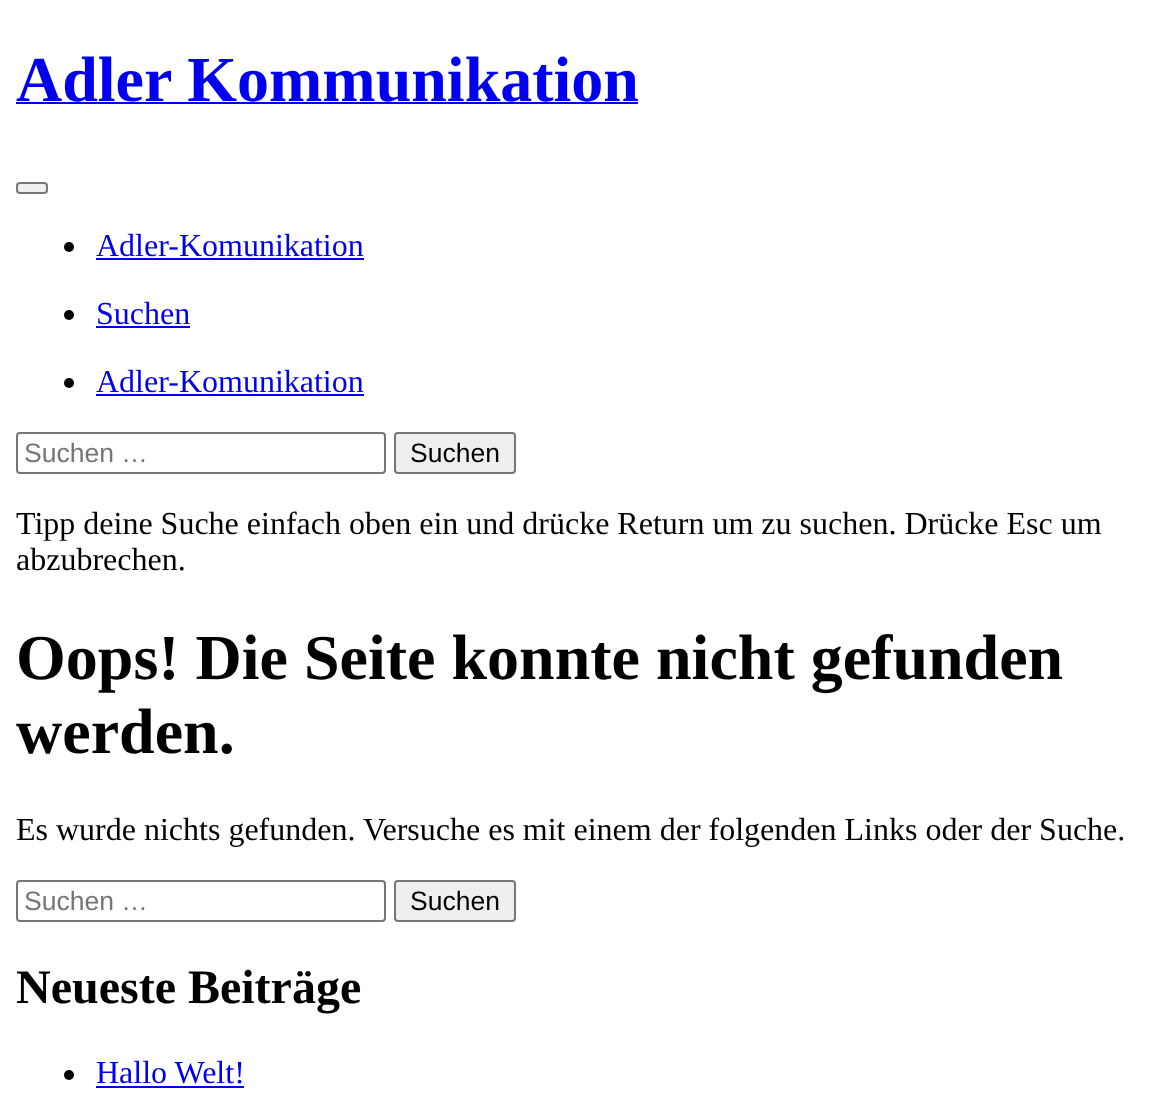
<svg xmlns="http://www.w3.org/2000/svg" width="1149" height="1103" viewBox="0 0 1149 1103">
  <style>
    .t1 { font: bold 64px Liberation Serif; fill: #00e; }
    .t2 { font: 32px Liberation Serif; fill: #00e; }
    .t3 { font: 26.5px Liberation Sans; fill: #757575; }
    .t4 { font: 26.5px Liberation Sans; fill: #000; }
    .t5 { font: 32px Liberation Serif; fill: #000; }
    .t6 { font: bold 64px Liberation Serif; fill: #000; }
    .t7 { font: bold 48px Liberation Serif; fill: #000; }
  </style>
  <rect width="100%" height="100%" fill="#fff"/>
  <text x="16" y="101" class="t1">Adler Kommunikation</text>
  <rect x="16" y="102" width="622" height="2" fill="#00e"/>
  <rect x="17" y="183" width="30" height="10" rx="3" fill="#efefef" stroke="#767676" stroke-width="2"/>
  <circle cx="69" cy="247" r="5" fill="#000"/>
  <text x="96" y="256" class="t2">Adler-Komunikation</text>
  <rect x="96" y="258" width="268" height="2" fill="#00e"/>
  <circle cx="69" cy="315" r="5" fill="#000"/>
  <text x="96" y="324" class="t2">Suchen</text>
  <rect x="96" y="326" width="94" height="2" fill="#00e"/>
  <circle cx="69" cy="383" r="5" fill="#000"/>
  <text x="96" y="392" class="t2">Adler-Komunikation</text>
  <rect x="96" y="394" width="268" height="2" fill="#00e"/>
  <rect x="17" y="433" width="368" height="40" rx="3" fill="none" stroke="#767676" stroke-width="2"/>
  <text x="24" y="462" class="t3">Suchen …</text>
  <rect x="395" y="433" width="120" height="40" rx="3" fill="#efefef" stroke="#767676" stroke-width="2"/>
  <text x="410" y="462" class="t4">Suchen</text>
  <text x="16" y="534" class="t5">Tipp deine Suche einfach oben ein und drücke Return um zu suchen. Drücke Esc um</text>
  <text x="16" y="570" class="t5">abzubrechen.</text>
  <text x="16" y="679" class="t6">Oops! Die Seite konnte nicht gefunden</text>
  <text x="16" y="753" class="t6">werden.</text>
  <text x="16" y="840" class="t5">Es wurde nichts gefunden. Versuche es mit einem der folgenden Links oder der Suche.</text>
  <rect x="17" y="881" width="368" height="40" rx="3" fill="none" stroke="#767676" stroke-width="2"/>
  <text x="24" y="910" class="t3">Suchen …</text>
  <rect x="395" y="881" width="120" height="40" rx="3" fill="#efefef" stroke="#767676" stroke-width="2"/>
  <text x="410" y="910" class="t4">Suchen</text>
  <text x="16" y="1003" class="t7">Neueste Beiträge</text>
  <circle cx="69" cy="1075" r="5" fill="#000"/>
  <text x="96" y="1083" class="t2">Hallo Welt!</text>
  <rect x="96" y="1086" width="148" height="2" fill="#00e"/>
</svg>
